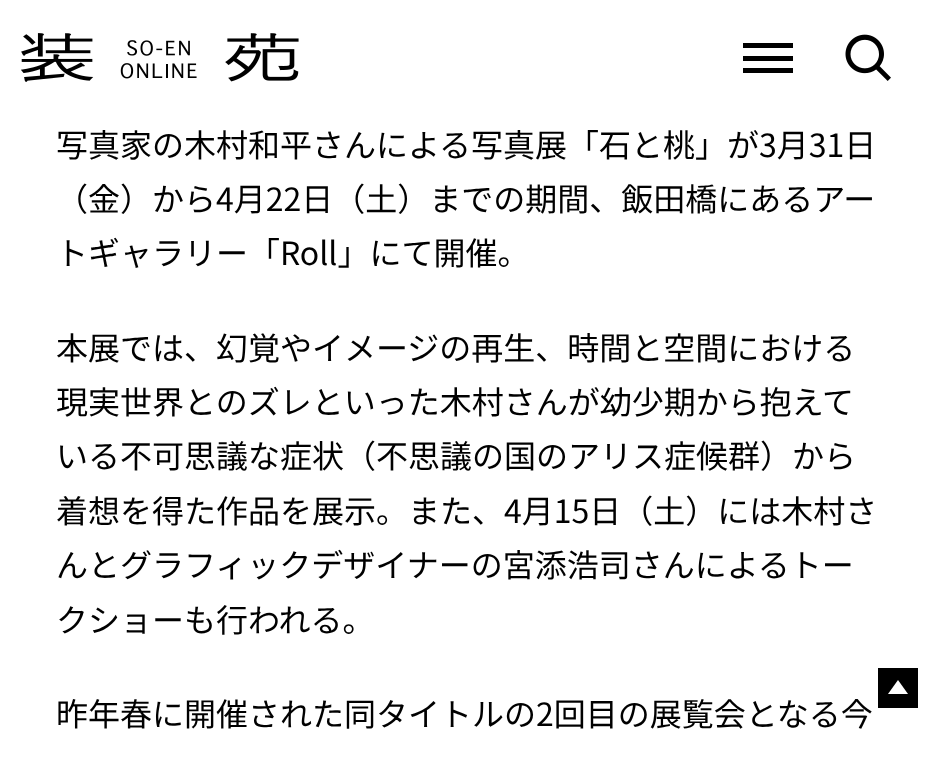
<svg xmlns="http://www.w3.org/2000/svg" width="937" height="768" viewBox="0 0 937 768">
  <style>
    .t1 { font: 100 32px Noto Sans JP; fill: #000; }
  </style>
  <rect width="100%" height="100%" fill="#fff"/>
  <image x="21" y="33" width="278" height="49" href="images/1.png"/>
  <rect x="743" y="43" width="50" height="5" fill="#000"/>
  <rect x="743" y="56" width="50" height="5" fill="#000"/>
  <rect x="743" y="68" width="50" height="5" fill="#000"/>
  <image x="845" y="34" width="46" height="47" href="images/2.png"/>
  <text x="56" y="157" class="t1">写真家の木村和平さんによる写真展「石と桃」が3月31日</text>
  <text x="56" y="211" class="t1">（金）から4月22日（土）までの期間、飯田橋にあるアー</text>
  <text x="56" y="265" class="t1">トギャラリー「Roll」にて開催。</text>
  <text x="56" y="360" class="t1">本展では、幻覚やイメージの再生、時間と空間における</text>
  <text x="56" y="414" class="t1">現実世界とのズレといった木村さんが幼少期から抱えて</text>
  <text x="56" y="468" class="t1">いる不可思議な症状（不思議の国のアリス症候群）から</text>
  <text x="56" y="523" class="t1">着想を得た作品を展示。また、4月15日（土）には木村さ</text>
  <text x="56" y="577" class="t1">んとグラフィックデザイナーの宮添浩司さんによるトー</text>
  <text x="56" y="632" class="t1">クショーも行われる。</text>
  <text x="56" y="726" class="t1">昨年春に開催された同タイトルの2回目の展覧会となる今</text>
  <rect x="878" y="668" width="40" height="40" fill="#000"/>
  <path d="M908 694H888L898 680Z" fill="#fff"/>
</svg>
